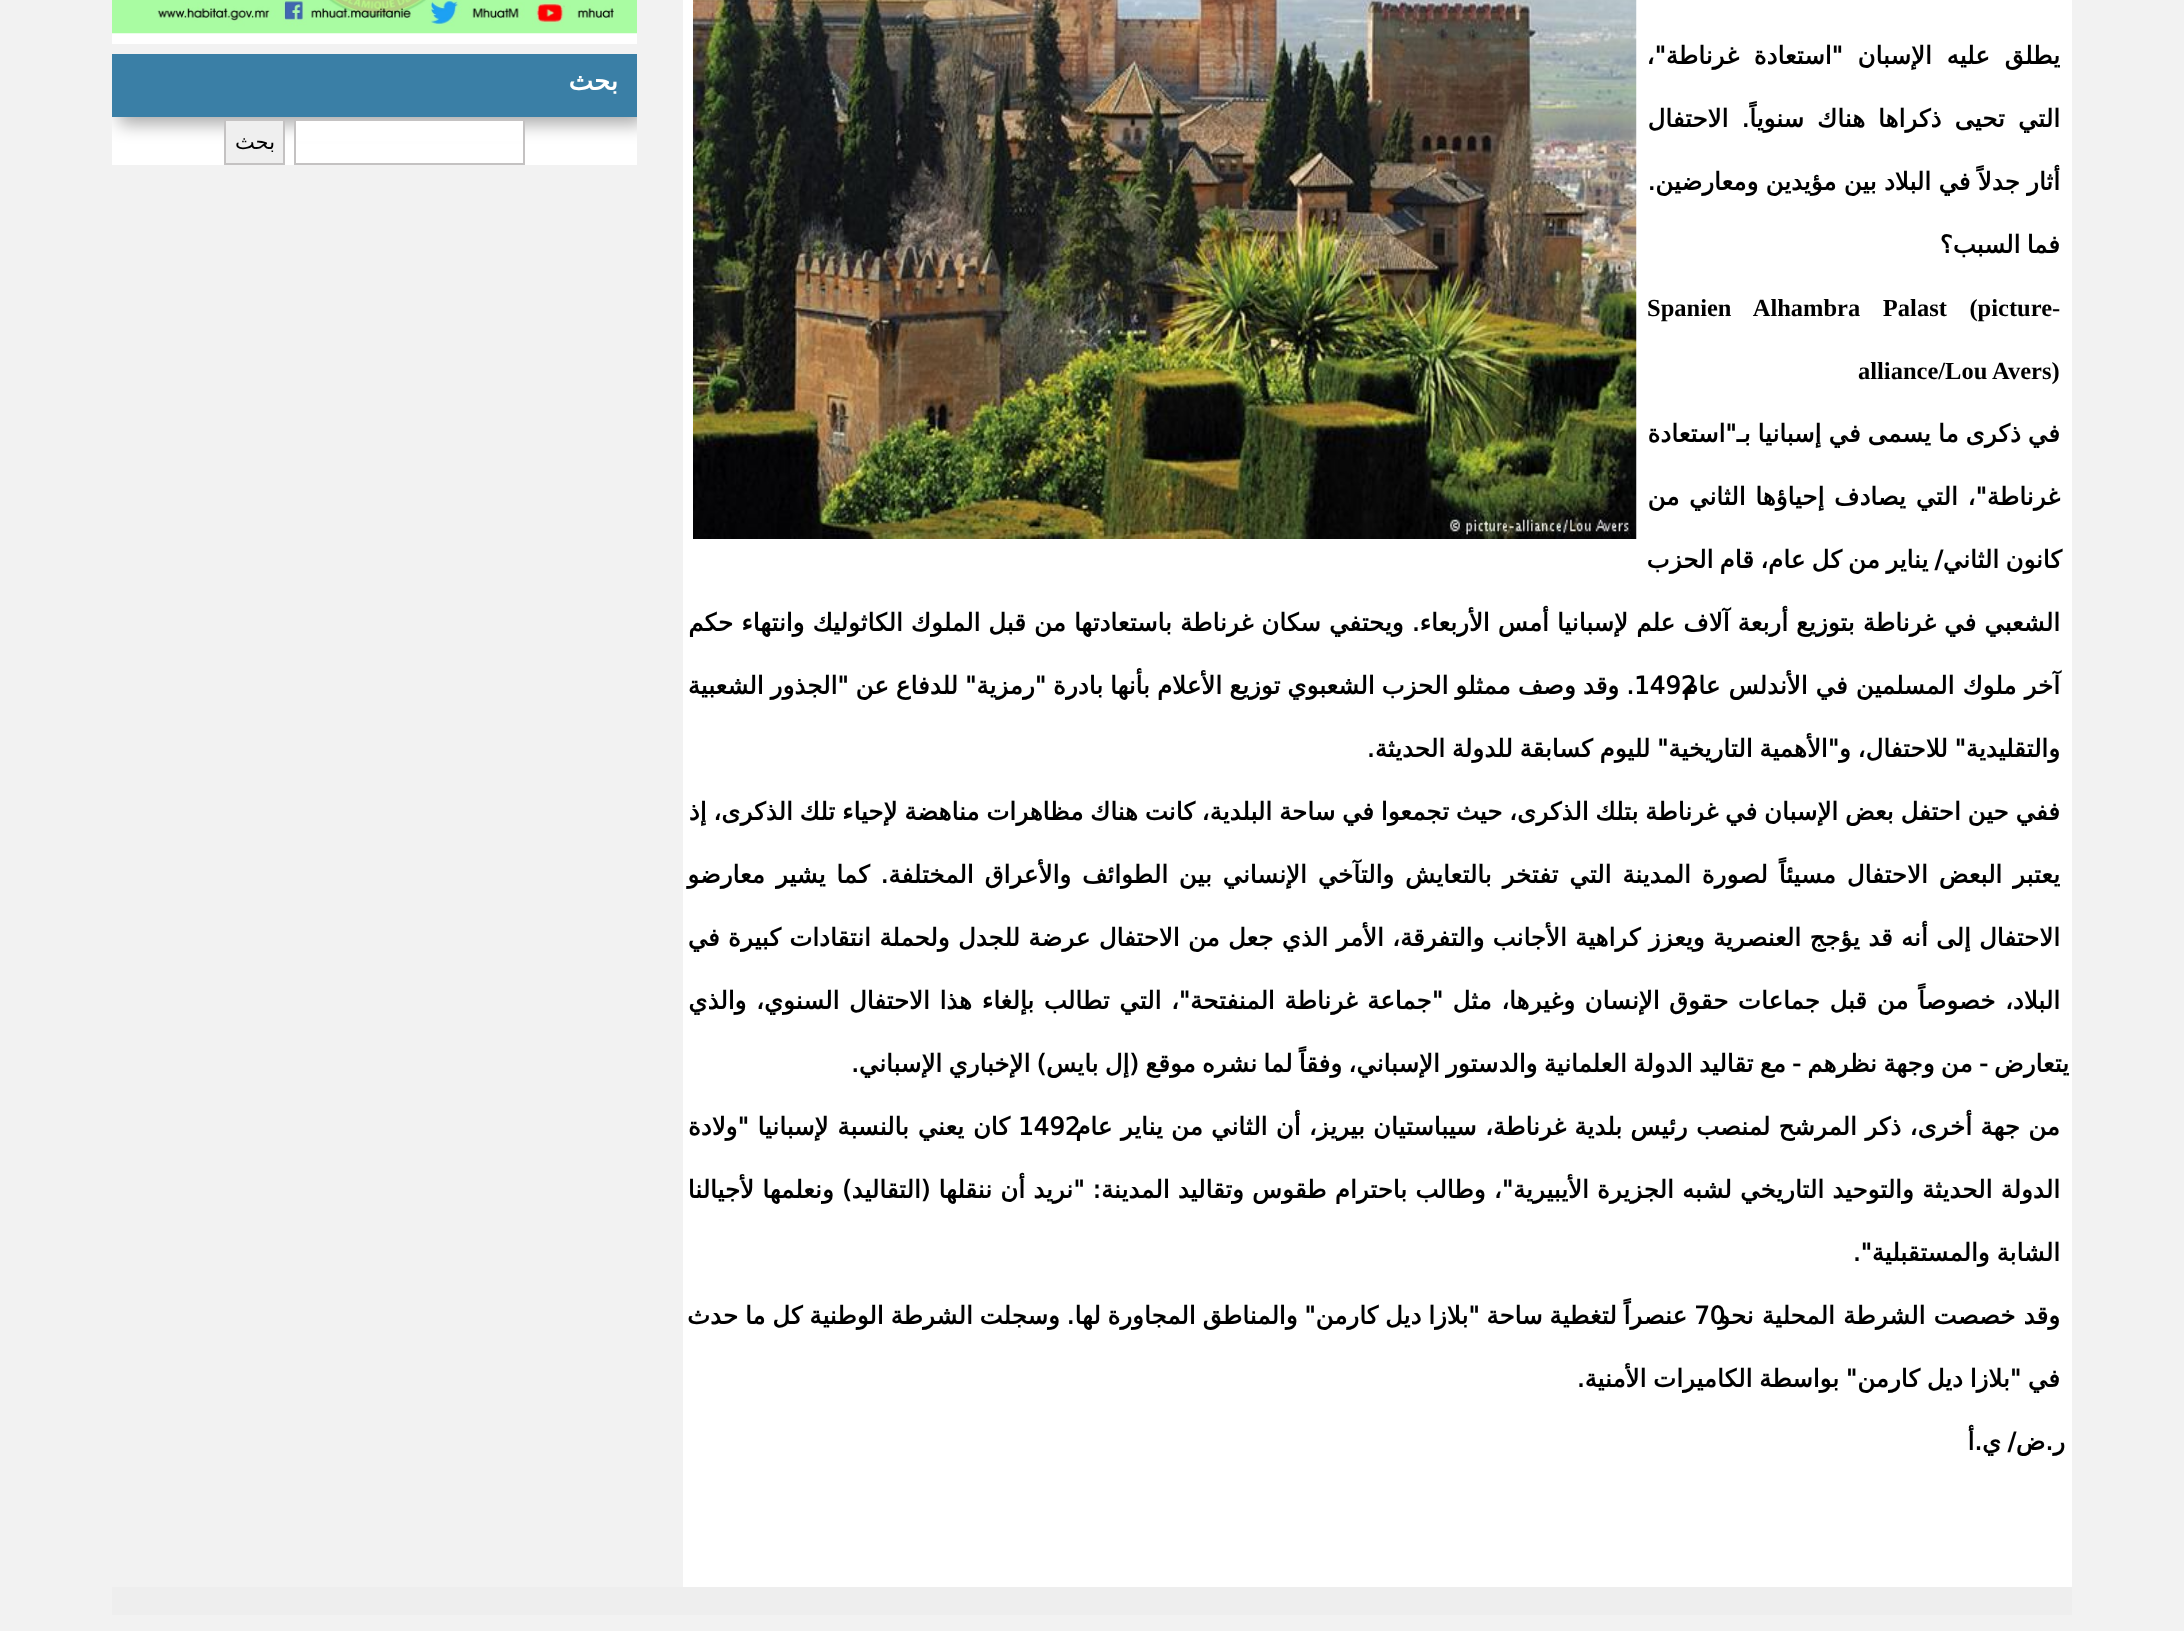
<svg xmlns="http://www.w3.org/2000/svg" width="2184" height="1631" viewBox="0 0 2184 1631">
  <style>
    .t1 { font: bold 24.5px DejaVu Sans; direction: rtl; fill: #000; }
    .t2 { font: bold 24.5px Liberation Serif; fill: #000; }
    .t3 { font: bold 24.5px DejaVu Sans; fill: #000; }
    .t4 { font: bold 26px DejaVu Sans; direction: rtl; fill: #fff; }
    .t5 { font: 21px DejaVu Sans; direction: rtl; fill: #000; }
  </style>
  <defs>
    <clipPath id="clip1"><rect x="112" y="0" width="1960" height="1615"/></clipPath>
    <clipPath id="clip2"><rect x="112" y="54" width="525" height="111"/></clipPath>
  </defs>
  <rect width="100%" height="100%" fill="#f2f2f2"/>
  <rect x="683" y="0" width="1389" height="1587" fill="#fff"/>
  <image x="693" y="0" width="944" height="539" href="images/1.png"/>
  <text x="2060" y="64" word-spacing="7" class="t1">يطلق عليه الإسبان "استعادة غرناطة"،</text>
  <text x="2060" y="127" word-spacing="5.25" class="t1">التي تحيى ذكراها هناك سنوياً. الاحتفال</text>
  <text x="2060" y="190" word-spacing="-0.5" class="t1">أثار جدلاً في البلاد بين مؤيدين ومعارضين.</text>
  <text x="2060" y="253" word-spacing="-1.5" class="t1">فما السبب؟</text>
  <text x="1647" y="316" word-spacing="16.5" class="t2">Spanien Alhambra Palast (picture-</text>
  <text x="1858" y="379" class="t2">alliance/Lou Avers)</text>
  <text x="2060" y="442" word-spacing="-0.75" class="t1">في ذكرى ما يسمى في إسبانيا بـ"استعادة</text>
  <text x="2060" y="505" word-spacing="2" class="t1">غرناطة"، التي يصادف إحياؤها الثاني من</text>
  <g clip-path="url(#clip1)">
    <text x="2062" y="568" word-spacing="-1.5" class="t1">كانون الثاني/ يناير من كل عام، قام الحزب</text>
  </g>
  <text x="2060" y="631" word-spacing="0.3" class="t1">الشعبي في غرناطة بتوزيع أربعة آلاف علم لإسبانيا أمس الأربعاء. ويحتفي سكان غرناطة باستعادتها من قبل الملوك الكاثوليك وانتهاء حكم</text>
  <text x="1634" y="694" word-spacing="-0.75" class="t1">. وقد وصف ممثلو الحزب الشعبوي توزيع الأعلام بأنها بادرة "رمزية" للدفاع عن "الجذور الشعبية</text>
  <text x="1634" y="694" class="t3">1492</text>
  <text x="2060" y="694" word-spacing="0.25" class="t1">آخر ملوك المسلمين في الأندلس عام</text>
  <text x="2060" y="757" word-spacing="-1" class="t1">والتقليدية" للاحتفال، و"الأهمية التاريخية" لليوم كسابقة للدولة الحديثة.</text>
  <text x="2060" y="820" word-spacing="-1" class="t1">ففي حين احتفل بعض الإسبان في غرناطة بتلك الذكرى، حيث تجمعوا في ساحة البلدية، كانت هناك مظاهرات مناهضة لإحياء تلك الذكرى، إذ</text>
  <text x="2060" y="883" word-spacing="3.1" class="t1">يعتبر البعض الاحتفال مسيئاً لصورة المدينة التي تفتخر بالتعايش والتآخي الإنساني بين الطوائف والأعراق المختلفة. كما يشير معارضو</text>
  <text x="2060" y="946" word-spacing="0.5" class="t1">الاحتفال إلى أنه قد يؤجج العنصرية ويعزز كراهية الأجانب والتفرقة، الأمر الذي جعل من الاحتفال عرضة للجدل ولحملة انتقادات كبيرة في</text>
  <text x="2060" y="1009" word-spacing="1.8" class="t1">البلاد، خصوصاً من قبل جماعات حقوق الإنسان وغيرها، مثل "جماعة غرناطة المنفتحة"، التي تطالب بإلغاء هذا الاحتفال السنوي، والذي</text>
  <g clip-path="url(#clip1)">
    <text x="2069" y="1072" word-spacing="-1.5" class="t1">يتعارض - من وجهة نظرهم - مع تقاليد الدولة العلمانية والدستور الإسباني، وفقاً لما نشره موقع (إل بايس) الإخباري الإسباني.</text>
  </g>
  <text x="1018" y="1135" class="t3">1492</text>
  <text x="2060" y="1135" word-spacing="0.5" class="t1">من جهة أخرى، ذكر المرشح لمنصب رئيس بلدية غرناطة، سيباستيان بيريز، أن الثاني من يناير عام</text>
  <text x="1010" y="1135" word-spacing="1" class="t1">كان يعني بالنسبة لإسبانيا "ولادة</text>
  <text x="2060" y="1198" word-spacing="0.4" class="t1">الدولة الحديثة والتوحيد التاريخي لشبه الجزيرة الأيبيرية"، وطالب باحترام طقوس وتقاليد المدينة: "نريد أن ننقلها (التقاليد) ونعلمها لأجيالنا</text>
  <text x="2060" y="1261" word-spacing="-1" class="t1">الشابة والمستقبلية".</text>
  <text x="1687" y="1324" word-spacing="-1" class="t1">عنصراً لتغطية ساحة "بلازا ديل كارمن" والمناطق المجاورة لها. وسجلت الشرطة الوطنية كل ما حدث</text>
  <text x="1694" y="1324" class="t3">70</text>
  <text x="2060" y="1324" word-spacing="0.5" class="t1">وقد خصصت الشرطة المحلية نحو</text>
  <text x="2060" y="1387" word-spacing="-1" class="t1">في "بلازا ديل كارمن" بواسطة الكاميرات الأمنية.</text>
  <text x="2065" y="1450" word-spacing="-1.5" class="t1">ر.ض/ ي.أ</text>
  <rect x="112" y="33" width="525" height="11" fill="#fff"/>
  <image x="112" y="0" width="525" height="34" href="images/2.png"/>
  <rect x="112" y="117" width="525" height="48" fill="#fff"/>
  <g clip-path="url(#clip2)">
    <rect x="119" y="61" width="525" height="63" fill="#00000057" filter="blur(9px)"/>
  </g>
  <rect x="112" y="54" width="525" height="63" fill="#3a7fa6"/>
  <text x="618" y="90" class="t4">بحث</text>
  <rect x="296" y="121" width="227" height="20" fill="#fff"/>
  <rect x="295" y="120" width="229" height="44" fill="none" stroke="#c4c2c2" stroke-width="2"/>
  <rect x="225" y="120" width="59" height="44" fill="#efefef" stroke="#c4c2c2" stroke-width="2"/>
  <text x="275" y="149" class="t5">بحث</text>
  <rect x="112" y="1587" width="1960" height="28" fill="#eee"/>
</svg>
